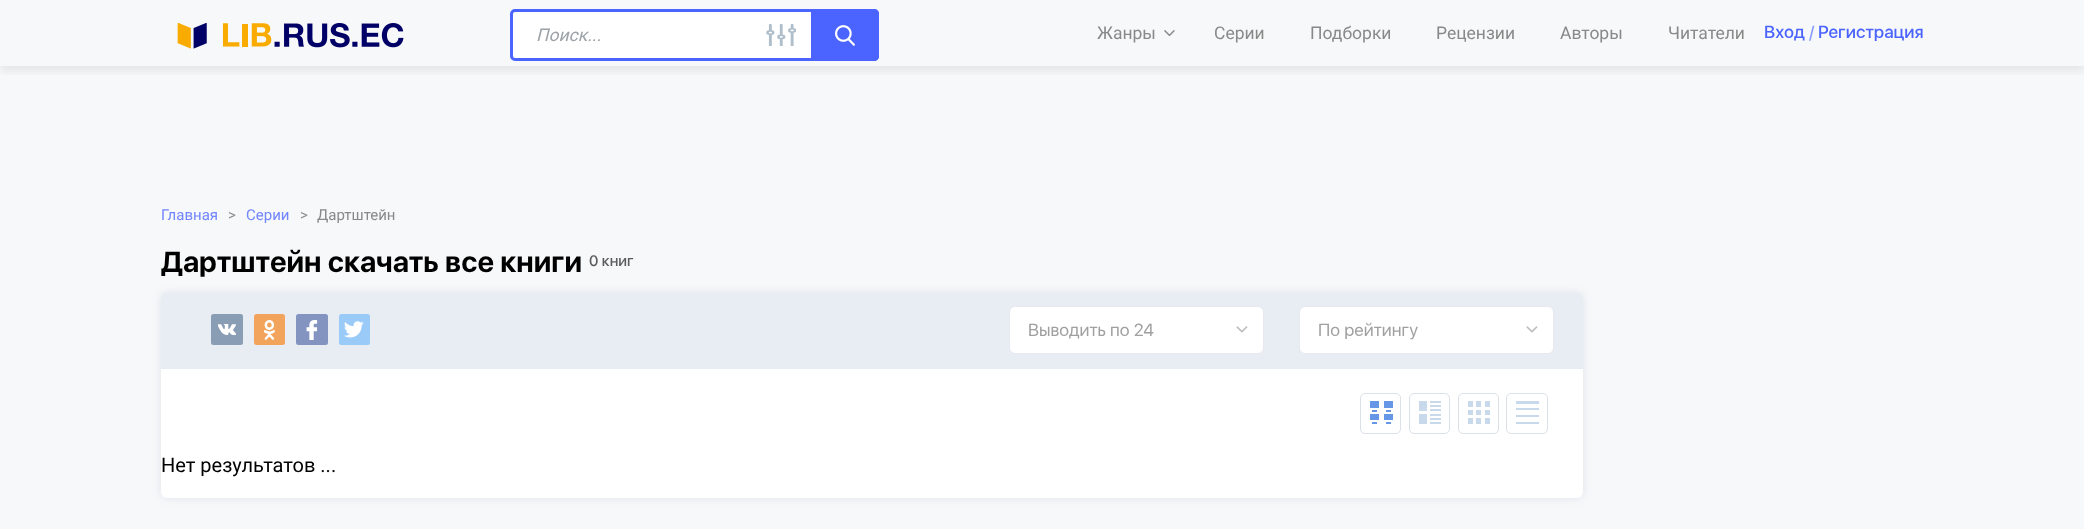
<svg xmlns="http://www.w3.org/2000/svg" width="2084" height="529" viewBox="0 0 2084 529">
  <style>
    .t1 { font: italic 17.5px Roboto; fill: #9ba2a8; }
    .t2 { font: 17.5px Roboto; fill: #898989; }
    .t3 { font: 500 17.5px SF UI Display; fill: #4b64ff; }
    .t4 { font: 500 17.5px SF UI Display; fill: #899eff; }
    .t5 { font: 15px Roboto; fill: #7185ff; }
    .t6 { font: 15px Roboto; fill: #898989; }
    .t7 { font: bold 28.75px SF UI Display; fill: #000; }
    .t8 { font: 500 15px SF UI Display; fill: #5b5b5b; }
    .t9 { font: 17.5px SF UI Display; fill: #a0a0a0; }
    .t10 { font: 20px Roboto; fill: #000; }
  </style>
  <defs>
    <clipPath id="clip1"><rect x="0" y="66" width="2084" height="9"/></clipPath>
  </defs>
  <rect width="100%" height="100%" fill="#f7f8f9"/>
  <g clip-path="url(#clip1)">
    <rect x="0" y="5" width="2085" height="66" fill="#2f292917" filter="blur(5px)"/>
  </g>
  <image x="177" y="23" width="227" height="26" href="images/1.png"/>
  <rect x="511.5" y="10.5" width="366" height="49" rx="3.5" fill="#fff" stroke="#4b64ff" stroke-width="3"/>
  <text x="536" y="41" class="t1">Поиск...</text>
  <image x="766" y="24" width="30" height="22" href="images/2.png"/>
  <path d="M811 9H874C877 9 879 11 879 14V56C879 59 877 61 874 61H811Z" fill="#4b64ff"/>
  <image x="835" y="25" width="20" height="21" href="images/3.png"/>
  <text x="1097" y="39" class="t2">Жанры</text>
  <image x="1164" y="30" width="11" height="6" href="images/4.png"/>
  <text x="1214" y="39" class="t2">Серии</text>
  <text x="1310" y="39" class="t2">Подборки</text>
  <text x="1436" y="39" class="t2">Рецензии</text>
  <text x="1560" y="39" class="t2">Авторы</text>
  <text x="1668" y="39" class="t2">Читатели</text>
  <text x="1764" y="38" class="t3">Вход</text>
  <text x="1809" y="38" class="t4">/</text>
  <text x="1818" y="38" class="t3">Регистрация</text>
  <text x="161" y="220" class="t5">Главная</text>
  <text x="228" y="220" class="t6">&gt;</text>
  <text x="246" y="220" class="t5">Серии</text>
  <text x="300" y="220" class="t6">&gt;</text>
  <text x="317" y="220" class="t6">Дартштейн</text>
  <text x="161" y="272" class="t7">Дартштейн скачать все книги</text>
  <text x="589" y="266" class="t8">0 книг</text>
  <rect x="161" y="293" width="1422" height="205" rx="6" fill="#4245831f" filter="blur(5px)"/>
  <rect x="161" y="293" width="1422" height="205" rx="6" fill="#fff"/>
  <path d="M167 293H1577C1580.5 293 1583 295.5 1583 299V369H161V299C161 295.5 163.5 293 167 293Z" fill="#e7edf2"/>
  <rect x="211" y="314" width="32" height="31" rx="2.5" fill="#899db5"/>
  <image x="218" y="324" width="18" height="11" href="images/5.png"/>
  <rect x="254" y="314" width="31" height="31" rx="2.5" fill="#f2a45c"/>
  <image x="264" y="320" width="11" height="20" href="images/6.png"/>
  <rect x="296" y="314" width="32" height="31" rx="2.5" fill="#8494c0"/>
  <image x="306" y="320" width="12" height="20" href="images/7.png"/>
  <rect x="339" y="314" width="31" height="31" rx="2.5" fill="#99caf8"/>
  <image x="344" y="321" width="20" height="17" href="images/8.png"/>
  <rect x="1009.5" y="306.5" width="254" height="47" rx="5.5" fill="#fff" stroke="#e8e8f0"/>
  <text x="1028" y="336" class="t9">Выводить по 24</text>
  <image x="1236" y="326" width="12" height="7" href="images/9.png"/>
  <rect x="1299.5" y="306.5" width="254" height="47" rx="5.5" fill="#fff" stroke="#e8e8f0"/>
  <text x="1318" y="336" class="t9">По рейтингу</text>
  <image x="1526" y="326" width="12" height="7" href="images/9.png"/>
  <rect x="1360.5" y="393.5" width="40" height="40" rx="4.5" fill="none" stroke="#dbe1e7"/>
  <image x="1370" y="401" width="23" height="23" href="images/10.png"/>
  <rect x="1409.5" y="393.5" width="40" height="40" rx="4.5" fill="none" stroke="#dbe1e7"/>
  <image x="1419" y="401" width="22" height="23" href="images/11.png"/>
  <rect x="1458.5" y="393.5" width="40" height="40" rx="4.5" fill="none" stroke="#dbe1e7"/>
  <image x="1468" y="401" width="22" height="23" href="images/12.png"/>
  <rect x="1506.5" y="393.5" width="41" height="40" rx="4.5" fill="none" stroke="#dbe1e7"/>
  <rect x="1516" y="401" width="23" height="3" fill="#c7d9ea"/>
  <rect x="1516" y="408" width="23" height="2" fill="#c7d9ea"/>
  <rect x="1516" y="415" width="23" height="2" fill="#c7d9ea"/>
  <rect x="1516" y="422" width="23" height="2" fill="#c7d9ea"/>
  <text x="161" y="472" class="t10">Нет результатов ...</text>
</svg>
